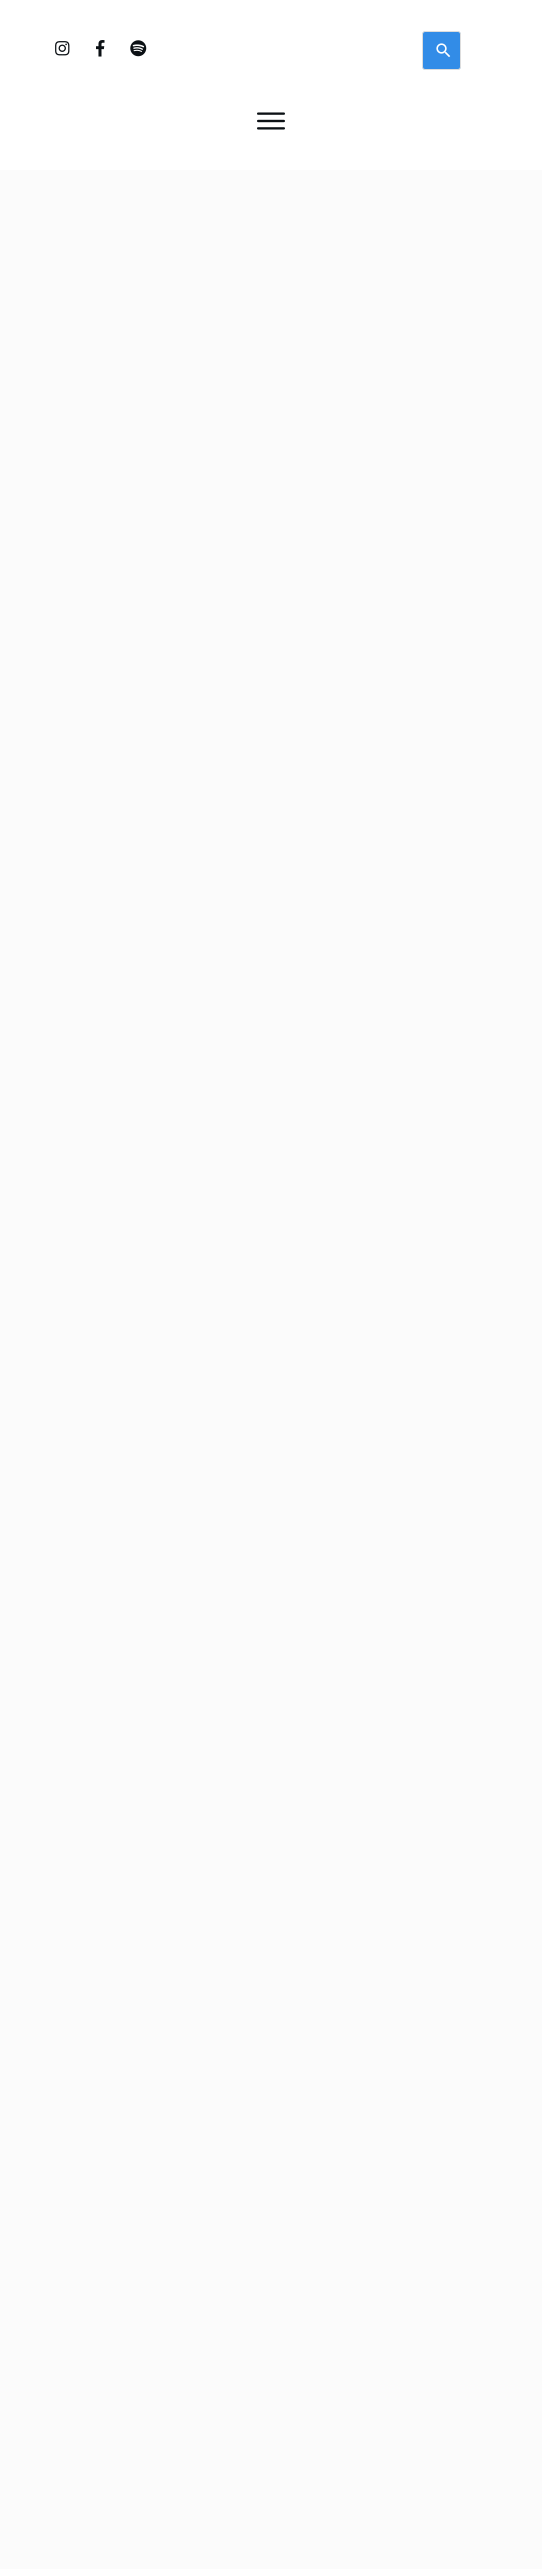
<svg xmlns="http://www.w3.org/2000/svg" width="542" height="2569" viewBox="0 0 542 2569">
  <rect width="100%" height="100%" fill="#fbfbfb"/>
  <rect x="0" y="0" width="542" height="170" fill="#fff"/>
  <image x="55" y="41" width="15" height="15" href="images/1.png"/>
  <image x="96" y="40" width="9" height="17" href="images/2.png"/>
  <image x="130" y="40" width="17" height="17" href="images/3.png"/>
  <rect x="422.5" y="31.5" width="38" height="38" rx="2.5" fill="#328ce7" stroke="#ddd"/>
  <image x="436" y="43" width="15" height="15" href="images/4.png"/>
  <image x="257" y="112" width="28" height="18" href="images/5.png"/>
</svg>
